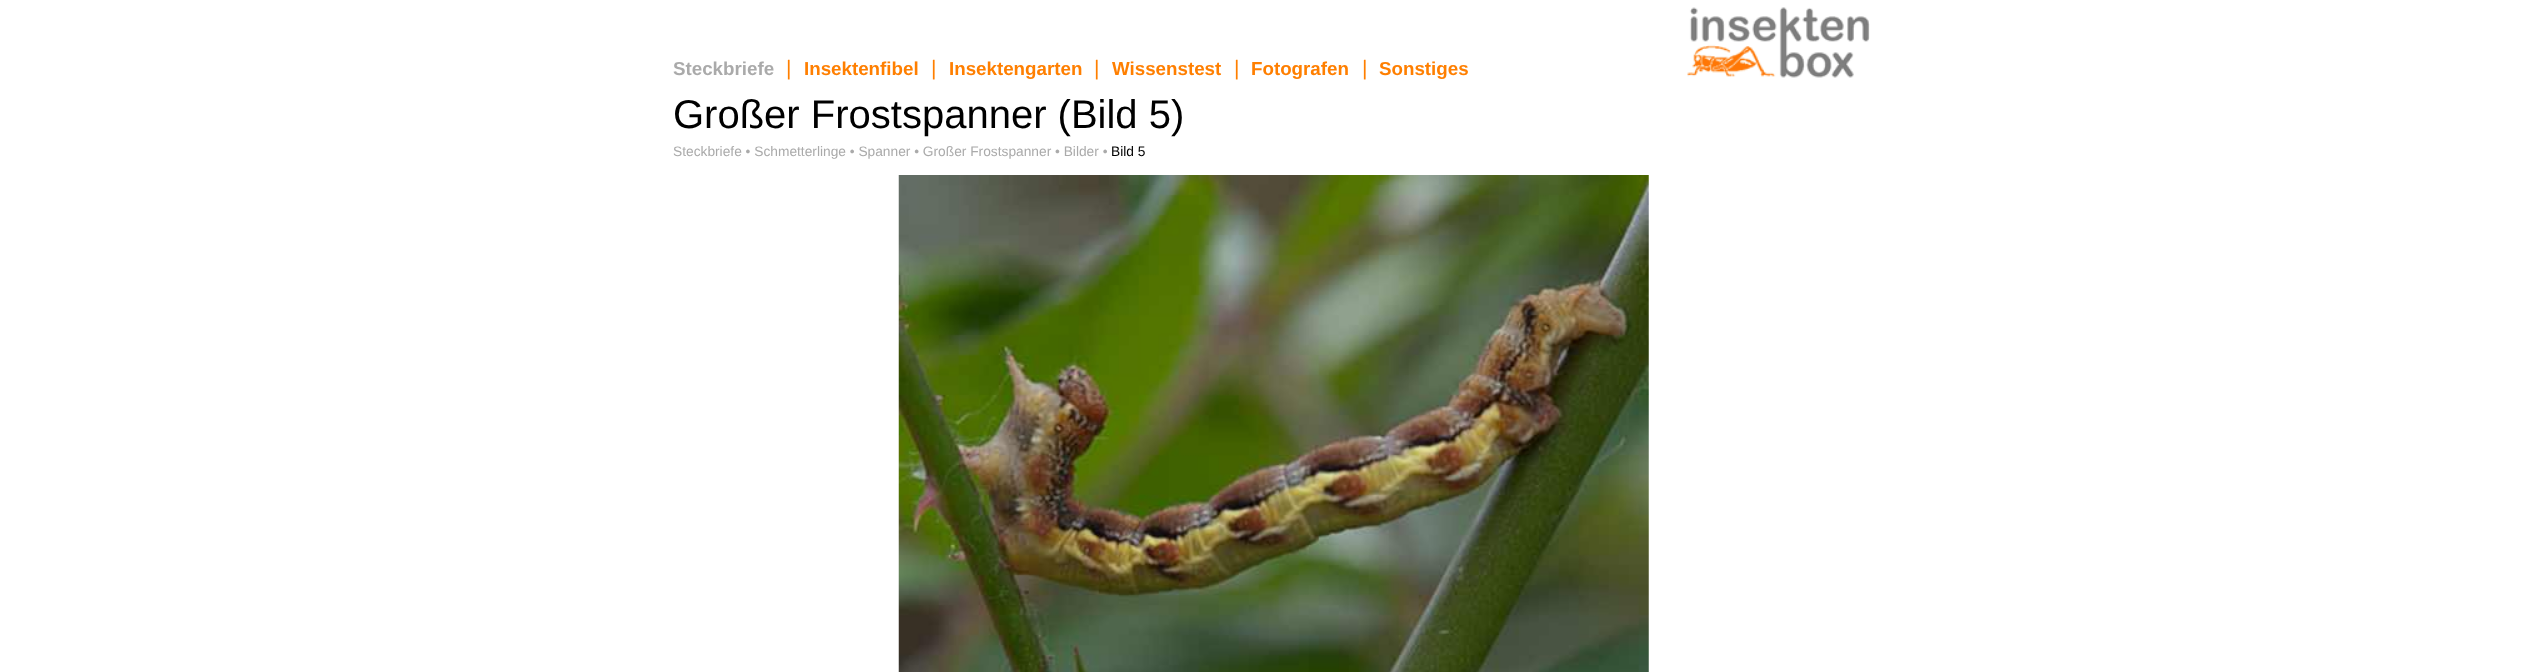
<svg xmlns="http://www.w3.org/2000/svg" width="2546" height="672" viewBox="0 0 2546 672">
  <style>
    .t1 { font: bold 18.75px Liberation Sans; fill: #aaa; }
    .t2 { font: 21px Liberation Sans; fill: #ff7f00; }
    .t3 { font: bold 18.75px Liberation Sans; fill: #ff7f00; }
    .t4 { font: 40px Liberation Sans; fill: #000; }
    .t5 { font: 13.75px Liberation Sans; fill: #aaa; }
    .t6 { font: 13.75px Liberation Sans; fill: #000; }
  </style>
  <rect width="100%" height="100%" fill="#fff"/>
  <text x="673" y="75" class="t1">Steckbriefe</text>
  <text x="786" y="75" class="t2">|</text>
  <text x="804" y="75" class="t3">Insektenfibel</text>
  <text x="931" y="75" class="t2">|</text>
  <text x="949" y="75" class="t3">Insektengarten</text>
  <text x="1094" y="75" class="t2">|</text>
  <text x="1112" y="75" class="t3">Wissenstest</text>
  <text x="1234" y="75" class="t2">|</text>
  <text x="1251" y="75" class="t3">Fotografen</text>
  <text x="1362" y="75" class="t2">|</text>
  <text x="1379" y="75" class="t3">Sonstiges</text>
  <image x="1687" y="7" width="183" height="71" href="images/1.png"/>
  <text x="673" y="128" class="t4">Großer Frostspanner (Bild 5)</text>
  <text x="673" y="156" class="t5">Steckbriefe • Schmetterlinge • Spanner • Großer Frostspanner • Bilder •</text>
  <text x="1111" y="156" class="t6">Bild 5</text>
  <image x="898" y="175" width="751" height="497" href="images/2.png"/>
</svg>
